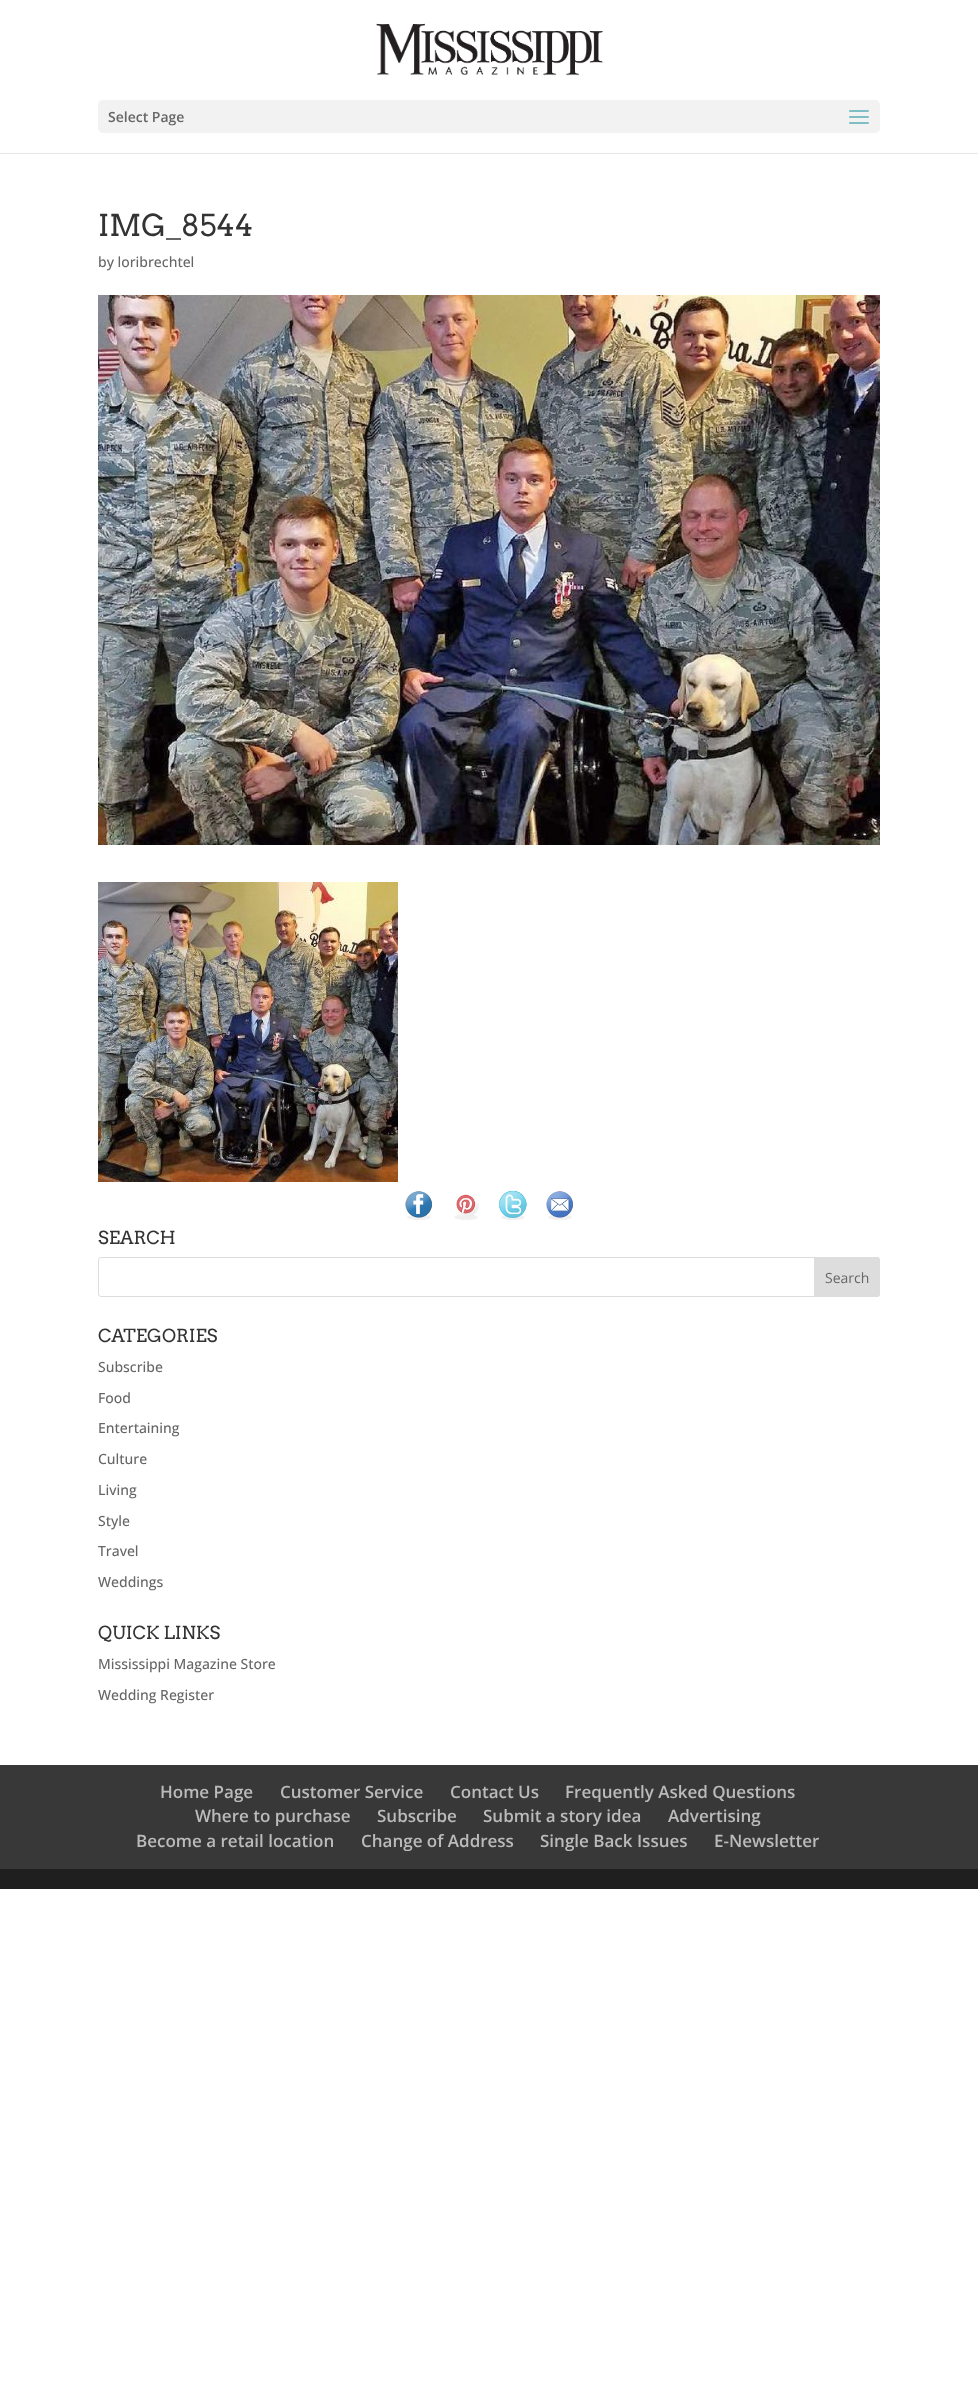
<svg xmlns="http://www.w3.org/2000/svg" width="978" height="2393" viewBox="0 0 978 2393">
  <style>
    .t1 { font: 600 14px Open Sans; fill: #666; }
    .t2 { font: 30px Arvo; fill: #333; }
    .t3 { font: 500 14px Open Sans; fill: #666; }
    .t4 { font: 18px Arvo; fill: #333; }
    .t5 { font: 14px Open Sans; fill: #666; }
    .t6 { font: 600 17px Open Sans; fill: #bbb; }
  </style>
  <rect width="100%" height="100%" fill="#fff"/>
  <rect x="0" y="153" width="978" height="1" fill="#e6e6e6"/>
  <image x="376" y="23" width="227" height="53" href="images/1.png"/>
  <rect x="98" y="100" width="782" height="33" rx="5" fill="#f2f2f2"/>
  <text x="108" y="122" class="t1">Select Page</text>
  <image x="849" y="110" width="20" height="14" href="images/2.png"/>
  <text x="98" y="236" class="t2">IMG_8544</text>
  <text x="98" y="267" class="t3">by loribrechtel</text>
  <image x="98" y="295" width="782" height="550" href="images/3.png"/>
  <image x="98" y="882" width="300" height="300" href="images/4.png"/>
  <image x="405" y="1191" width="27" height="29" href="images/5.png"/>
  <image x="453" y="1194" width="26" height="26" href="images/6.png"/>
  <image x="499" y="1190" width="28" height="30" href="images/7.png"/>
  <image x="546" y="1191" width="27" height="29" href="images/8.png"/>
  <text x="98" y="1244" class="t4">SEARCH</text>
  <rect x="98.5" y="1257.5" width="781" height="39" rx="2.5" fill="none" stroke="#ddd"/>
  <path d="M814.5 1257.5H877C878.5 1257.5 879.5 1258.5 879.5 1260V1294C879.5 1295.5 878.5 1296.5 877 1296.5H814.5Z" fill="#ddd" stroke="#ddd"/>
  <text x="825" y="1283" class="t5">Search</text>
  <text x="98" y="1342" class="t4">CATEGORIES</text>
  <text x="98" y="1372" class="t3">Subscribe</text>
  <text x="98" y="1403" class="t3">Food</text>
  <text x="98" y="1433" class="t3">Entertaining</text>
  <text x="98" y="1464" class="t3">Culture</text>
  <text x="98" y="1495" class="t3">Living</text>
  <text x="98" y="1526" class="t3">Style</text>
  <text x="98" y="1556" class="t3">Travel</text>
  <text x="98" y="1587" class="t3">Weddings</text>
  <text x="98" y="1639" class="t4">QUICK LINKS</text>
  <text x="98" y="1669" class="t3">Mississippi Magazine Store</text>
  <text x="98" y="1700" class="t3">Wedding Register</text>
  <rect x="0" y="1765" width="978" height="104" fill="#383838"/>
  <text x="160" y="1798" class="t6">Home Page</text>
  <text x="280" y="1798" class="t6">Customer Service</text>
  <text x="450" y="1798" class="t6">Contact Us</text>
  <text x="565" y="1798" class="t6">Frequently Asked Questions</text>
  <text x="195" y="1822" class="t6">Where to purchase</text>
  <text x="377" y="1822" class="t6">Subscribe</text>
  <text x="483" y="1822" class="t6">Submit a story idea</text>
  <text x="668" y="1822" class="t6">Advertising</text>
  <text x="136" y="1847" class="t6">Become a retail location</text>
  <text x="361" y="1847" class="t6">Change of Address</text>
  <text x="540" y="1847" class="t6">Single Back Issues</text>
  <text x="714" y="1847" class="t6">E-Newsletter</text>
  <rect x="0" y="1869" width="978" height="20" fill="#1f1f1f"/>
</svg>
